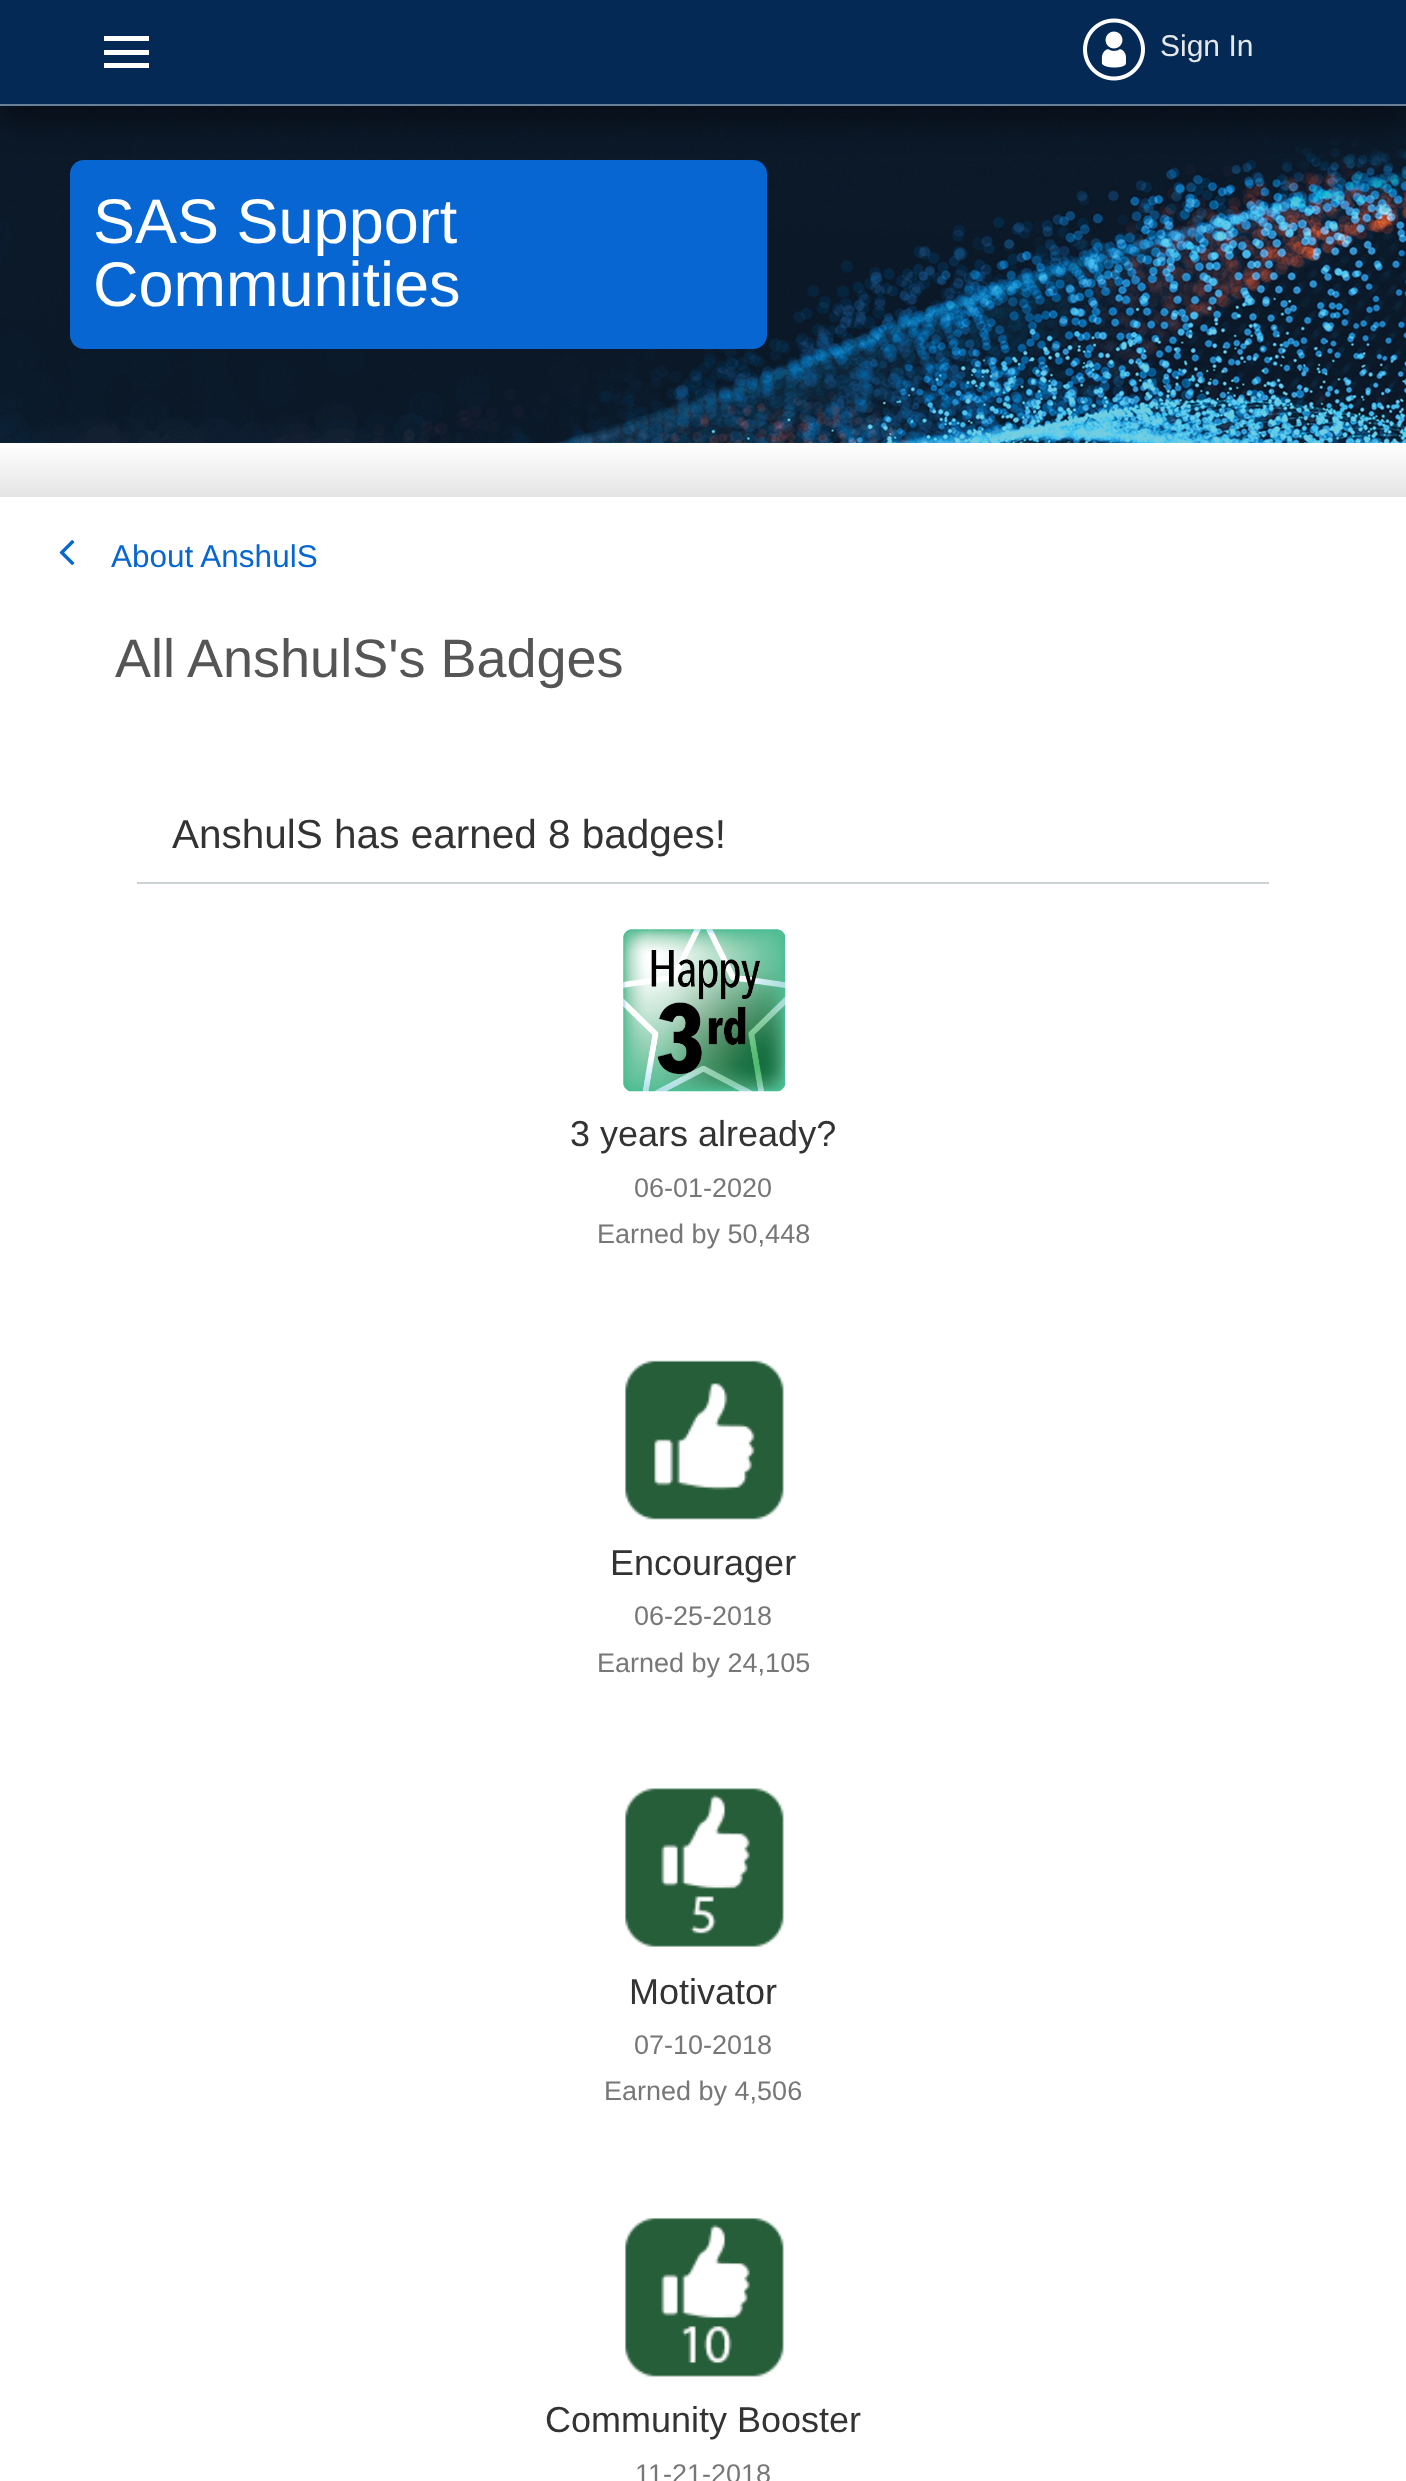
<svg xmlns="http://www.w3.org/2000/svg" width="1406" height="2481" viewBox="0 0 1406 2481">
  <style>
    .t1 { font: 30px Liberation Sans; fill: #e4e8ea; }
    .t2 { font: 63px Liberation Sans; fill: #fff; }
    .t3 { font: 31.5px Liberation Sans; fill: #0766d1; }
    .t4 { font: 54px Liberation Sans; fill: #555; }
    .t5 { font: 40.5px Liberation Sans; fill: #333; }
    .t6 { font: 36px Liberation Sans; fill: #333; }
    .t7 { font: 27px Liberation Sans; fill: #777; }
  </style>
  <defs>
    <linearGradient id="g1" gradientUnits="userSpaceOnUse" x1="703" y1="443" x2="703" y2="497"><stop offset="0" stop-color="#fff"/><stop offset="1" stop-color="#e4e4e4"/></linearGradient>
  </defs>
  <rect width="100%" height="100%" fill="#fff"/>
  <image x="0" y="106" width="1406" height="337" href="images/2.png"/>
  <rect x="0" y="18" width="1406" height="106" fill="#00000066" filter="blur(13.5px)"/>
  <rect x="0" y="0" width="1406" height="104" fill="#032954"/>
  <rect x="0" y="104" width="1406" height="2" fill="#687f98"/>
  <rect x="104" y="36" width="45" height="5" fill="#fff"/>
  <rect x="104" y="50" width="45" height="5" fill="#fff"/>
  <rect x="104" y="63" width="45" height="5" fill="#fff"/>
  <image x="1083" y="18" width="62" height="63" href="images/1.png"/>
  <text x="1160" y="56" class="t1">Sign In</text>
  <rect x="70" y="160" width="697" height="189" rx="14" fill="#0766d1"/>
  <text x="93" y="243" class="t2">SAS Support</text>
  <text x="93" y="306" class="t2">Communities</text>
  <rect x="0" y="448" width="1406" height="49" fill="url(#g1)"/>
  <image x="59" y="540" width="16" height="25" href="images/3.png"/>
  <text x="111" y="567" class="t3">About AnshulS</text>
  <text x="115" y="677" class="t4">All AnshulS's Badges</text>
  <rect x="137" y="882" width="1132" height="2" fill="#cbd3d5"/>
  <text x="172" y="848" class="t5">AnshulS has earned 8 badges!</text>
  <image x="623" y="929" width="163" height="163" href="images/4.png"/>
  <text x="570" y="1146" class="t6">3 years already?</text>
  <text x="634" y="1197" class="t7">06-01-2020</text>
  <text x="597" y="1243" class="t7">Earned by 50,448</text>
  <image x="625" y="1360" width="159" height="160" href="images/5.png"/>
  <text x="610" y="1575" class="t6">Encourager</text>
  <text x="634" y="1625" class="t7">06-25-2018</text>
  <text x="597" y="1672" class="t7">Earned by 24,105</text>
  <image x="625" y="1788" width="159" height="159" href="images/6.png"/>
  <text x="629" y="2004" class="t6">Motivator</text>
  <text x="634" y="2054" class="t7">07-10-2018</text>
  <text x="604" y="2100" class="t7">Earned by 4,506</text>
  <image x="625" y="2218" width="159" height="159" href="images/7.png"/>
  <text x="545" y="2432" class="t6">Community Booster</text>
  <text x="635" y="2483" class="t7">11-21-2018</text>
</svg>
